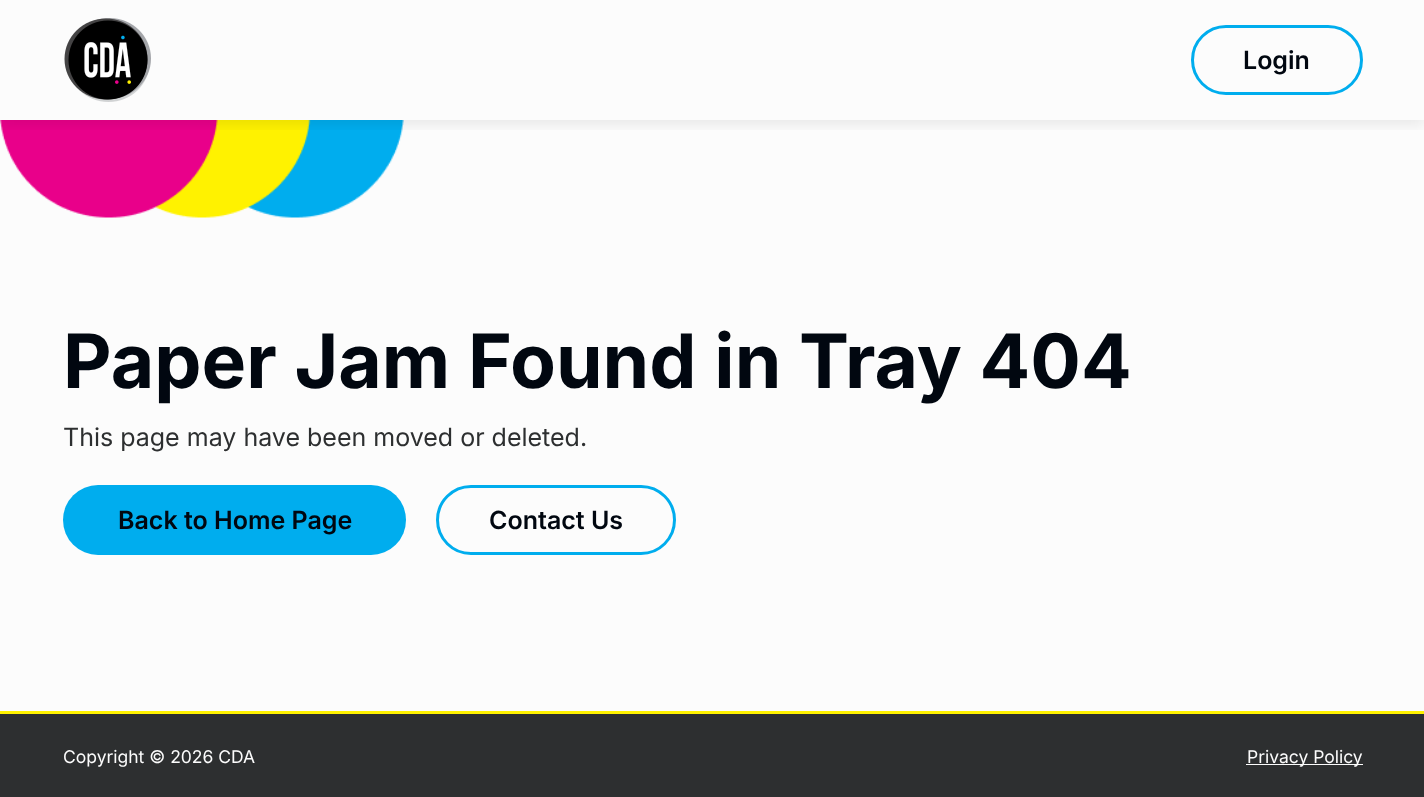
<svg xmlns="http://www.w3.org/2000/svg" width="1424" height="797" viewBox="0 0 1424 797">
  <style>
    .t1 { font: 600 25px Inter; fill: #010710; }
    .t2 { font: bold 75px Inter; fill: #010710; }
    .t3 { font: 25px Inter; fill: #2d2f30; }
    .t4 { font: 17.5px Inter; fill: #fcfcfc; }
  </style>
  <defs>
    <clipPath id="clip1"><rect x="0" y="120" width="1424" height="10"/></clipPath>
  </defs>
  <rect width="100%" height="100%" fill="#fcfcfc"/>
  <image x="0" y="120" width="404" height="98" href="images/2.png"/>
  <g clip-path="url(#clip1)">
    <rect x="0" y="5" width="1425" height="120" fill="#00000014" filter="blur(7.5px)"/>
  </g>
  <image x="64" y="18" width="87" height="84" href="images/1.png"/>
  <rect x="1192.5" y="26.5" width="169" height="67" rx="33.5" fill="none" stroke="#00adee" stroke-width="3"/>
  <text x="1243" y="69" class="t1">Login</text>
  <text x="63" y="388" class="t2">Paper Jam Found in Tray 404</text>
  <text x="63" y="446" class="t3">This page may have been moved or deleted.</text>
  <rect x="63" y="485" width="343" height="70" rx="35" fill="#00adee"/>
  <text x="118" y="529" class="t1">Back to Home Page</text>
  <rect x="437.5" y="486.5" width="237" height="67" rx="33.5" fill="none" stroke="#00adee" stroke-width="3"/>
  <text x="489" y="529" class="t1">Contact Us</text>
  <rect x="0" y="714" width="1424" height="83" fill="#2d2f30"/>
  <rect x="0" y="711" width="1424" height="3" fill="#fff200"/>
  <text x="63" y="763" class="t4">Copyright © 2026 CDA</text>
  <rect x="1246" y="764" width="117" height="1" fill="#fcfcfc"/>
  <text x="1247" y="763" class="t4">Privacy Policy</text>
</svg>
